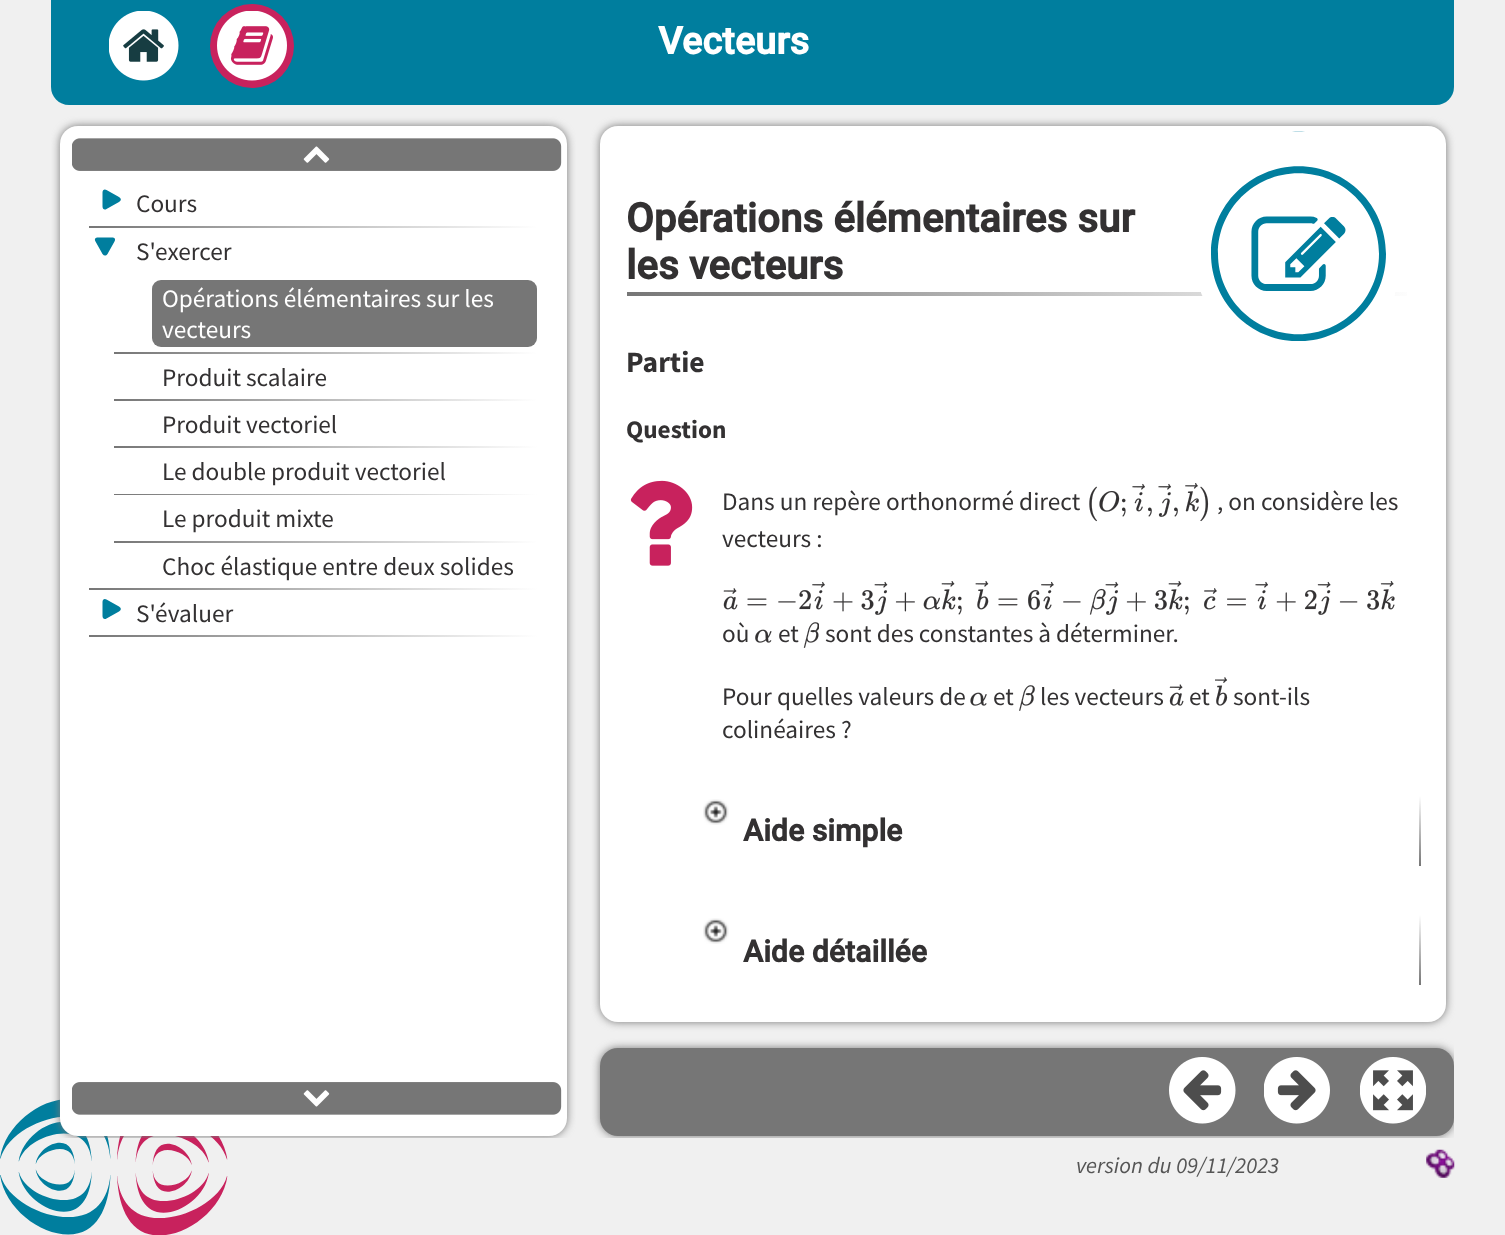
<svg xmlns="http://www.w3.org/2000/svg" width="1505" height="1235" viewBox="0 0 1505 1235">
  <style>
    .t1 { font: bold 38px Roboto; fill: #fff; }
    .t2 { font: 25.25px Source Sans Pro; fill: #333132; }
    .t3 { font: 25.25px Source Sans Pro; fill: #fff; }
    .t4 { font: bold 40.25px Roboto; fill: #333132; }
    .t5 { font: bold 29.5px Source Sans Pro; fill: #333132; }
    .t6 { font: bold 25.25px Source Sans Pro; fill: #333132; }
    .t7 { font: bold 30.25px Roboto; fill: #333132; }
    .t8 { font: italic 22.75px Source Sans Pro; fill: #555; }
  </style>
  <defs>
    <clipPath id="clip1"><rect x="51" y="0" width="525" height="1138"/></clipPath>
    <linearGradient id="g1" gradientUnits="userSpaceOnUse" x1="89" y1="227" x2="537" y2="227"><stop offset="0" stop-color="#767676"/><stop offset="1" stop-color="#fff"/></linearGradient>
    <linearGradient id="g2" gradientUnits="userSpaceOnUse" x1="89" y1="589" x2="537" y2="589"><stop offset="0" stop-color="#767676"/><stop offset="1" stop-color="#fff"/></linearGradient>
    <linearGradient id="g3" gradientUnits="userSpaceOnUse" x1="114" y1="353" x2="537" y2="353"><stop offset="0" stop-color="#767676"/><stop offset="1" stop-color="#fff"/></linearGradient>
    <linearGradient id="g4" gradientUnits="userSpaceOnUse" x1="114" y1="400" x2="537" y2="400"><stop offset="0" stop-color="#767676"/><stop offset="1" stop-color="#fff"/></linearGradient>
    <linearGradient id="g5" gradientUnits="userSpaceOnUse" x1="114" y1="447" x2="537" y2="447"><stop offset="0" stop-color="#767676"/><stop offset="1" stop-color="#fff"/></linearGradient>
    <linearGradient id="g6" gradientUnits="userSpaceOnUse" x1="114" y1="494" x2="537" y2="494"><stop offset="0" stop-color="#767676"/><stop offset="1" stop-color="#fff"/></linearGradient>
    <linearGradient id="g7" gradientUnits="userSpaceOnUse" x1="114" y1="542" x2="537" y2="542"><stop offset="0" stop-color="#767676"/><stop offset="1" stop-color="#fff"/></linearGradient>
    <linearGradient id="g8" gradientUnits="userSpaceOnUse" x1="89" y1="636" x2="537" y2="636"><stop offset="0" stop-color="#767676"/><stop offset="1" stop-color="#fff"/></linearGradient>
    <linearGradient id="g9" gradientUnits="userSpaceOnUse" x1="627" y1="294" x2="1421" y2="294"><stop offset="0" stop-color="#767676"/><stop offset="1" stop-color="#fff"/></linearGradient>
    <linearGradient id="g10" gradientUnits="userSpaceOnUse" x1="1420" y1="866" x2="1420" y2="796"><stop offset="0" stop-color="#767676"/><stop offset="1" stop-color="#fff"/></linearGradient>
    <linearGradient id="g11" gradientUnits="userSpaceOnUse" x1="1420" y1="985" x2="1420" y2="915"><stop offset="0" stop-color="#767676"/><stop offset="1" stop-color="#fff"/></linearGradient>
    <clipPath id="clip2"><rect x="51" y="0" width="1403" height="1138"/></clipPath>
  </defs>
  <rect width="100%" height="100%" fill="#f0f0f0"/>
  <image x="0" y="1099" width="228" height="136" href="images/1.png"/>
  <path d="M51 0H1454V87C1454 97 1446 105 1436 105H69C59 105 51 97 51 87Z" fill="#007e9e"/>
  <text x="658" y="54" class="t1">Vecteurs</text>
  <image x="109" y="11" width="70" height="70" href="images/2.png"/>
  <circle cx="252" cy="46" r="42" fill="#c8225d"/>
  <image x="217" y="11" width="70" height="70" href="images/3.png"/>
  <g clip-path="url(#clip1)">
    <rect x="60" y="126" width="507" height="1010" rx="18" fill="#767676" filter="blur(4.5px)"/>
  </g>
  <rect x="60" y="126" width="507" height="1010" rx="18" fill="#fff"/>
  <image x="72" y="138" width="490" height="33" href="images/4.png"/>
  <rect x="89" y="226" width="448" height="2" fill="url(#g1)"/>
  <path d="M102.5 192.5C102.5 190 104.5 188.5 106.5 190L119 197C121.5 198.5 121.5 200.5 119 202L106.5 209C104.5 210.5 102.5 209 102.5 206.5Z" fill="#007e9e"/>
  <text x="136" y="212" class="t2">Cours</text>
  <rect x="89" y="588" width="448" height="2" fill="url(#g2)"/>
  <path d="M112 237.5C114.5 237.5 116 239 114.5 241.5L107.5 254C106 256 104 256 102.5 254L95.5 241.5C94 239 95.5 237.5 98 237.5Z" fill="#007e9e"/>
  <text x="136" y="260" class="t2">S'exercer</text>
  <rect x="114" y="352" width="423" height="2" fill="url(#g3)"/>
  <rect x="152" y="280" width="385" height="67" rx="9" fill="#767676"/>
  <text x="162" y="307" class="t3">Opérations élémentaires sur les</text>
  <text x="162" y="338" class="t3">vecteurs</text>
  <rect x="114" y="399" width="423" height="2" fill="url(#g4)"/>
  <text x="162" y="386" class="t2">Produit scalaire</text>
  <rect x="114" y="446" width="423" height="2" fill="url(#g5)"/>
  <text x="162" y="433" class="t2">Produit vectoriel</text>
  <rect x="114" y="494" width="423" height="1" fill="url(#g6)"/>
  <text x="162" y="480" class="t2">Le double produit vectoriel</text>
  <rect x="114" y="541" width="423" height="2" fill="url(#g7)"/>
  <text x="162" y="527" class="t2">Le produit mixte</text>
  <text x="162" y="575" class="t2">Choc élastique entre deux solides</text>
  <rect x="89" y="635" width="448" height="2" fill="url(#g8)"/>
  <path d="M102.5 602C102.5 599.5 104.5 598 106.5 599.5L119 606.5C121.5 608 121.5 610 119 611.5L106.5 618.5C104.5 620 102.5 618.5 102.5 616Z" fill="#007e9e"/>
  <text x="136" y="622" class="t2">S'évaluer</text>
  <image x="72" y="1082" width="490" height="33" href="images/5.png"/>
  <rect x="600" y="126" width="846" height="896" rx="18" fill="#767676" filter="blur(4.5px)"/>
  <rect x="600" y="126" width="846" height="896" rx="18" fill="#fff"/>
  <rect x="627" y="292" width="780" height="4" fill="url(#g9)"/>
  <text x="626" y="232" class="t4">Opérations élémentaires sur</text>
  <image x="1201" y="131" width="194" height="210" href="images/6.png"/>
  <text x="626" y="279" class="t4">les vecteurs</text>
  <text x="626" y="372" class="t5">Partie</text>
  <text x="626" y="438" class="t6">Question</text>
  <image x="630" y="480" width="63" height="86" href="images/7.png"/>
  <text x="722" y="510" class="t2">Dans un repère orthonormé direct</text>
  <image x="1089" y="483" width="120" height="39" href="images/8.png"/>
  <text x="1217" y="510" class="t2">, on considère les</text>
  <text x="722" y="547" class="t2">vecteurs :</text>
  <image x="723" y="581" width="672" height="34" href="images/9.png"/>
  <text x="722" y="642" class="t2">où</text>
  <image x="755" y="629" width="17" height="14" href="images/10.png"/>
  <text x="778" y="642" class="t2">et</text>
  <image x="803" y="622" width="16" height="26" href="images/11.png"/>
  <text x="825" y="642" class="t2">sont des constantes à déterminer.</text>
  <text x="722" y="705" class="t2">Pour quelles valeurs de</text>
  <image x="970" y="692" width="17" height="14" href="images/12.png"/>
  <text x="993" y="705" class="t2">et</text>
  <image x="1019" y="685" width="16" height="26" href="images/13.png"/>
  <text x="1040" y="705" class="t2">les vecteurs</text>
  <image x="1169" y="684" width="15" height="22" href="images/14.png"/>
  <text x="1189" y="705" class="t2">et</text>
  <image x="1215" y="677" width="13" height="29" href="images/15.png"/>
  <text x="1233" y="705" class="t2">sont-ils</text>
  <text x="722" y="738" class="t2">colinéaires ?</text>
  <rect x="1419" y="796" width="2" height="70" fill="url(#g10)"/>
  <image x="703" y="799" width="26" height="26" href="images/16.png"/>
  <text x="743" y="841" class="t7">Aide simple</text>
  <rect x="1419" y="915" width="2" height="70" fill="url(#g11)"/>
  <image x="703" y="918" width="26" height="26" href="images/16.png"/>
  <text x="743" y="962" class="t7">Aide détaillée</text>
  <image x="1426" y="1149" width="29" height="29" href="images/20.png"/>
  <g clip-path="url(#clip2)">
    <rect x="600" y="1048" width="854" height="88" rx="18" fill="#767676" filter="blur(4.5px)"/>
  </g>
  <rect x="600" y="1048" width="854" height="88" rx="18" fill="#767676"/>
  <image x="1169" y="1057" width="67" height="67" href="images/17.png"/>
  <image x="1264" y="1057" width="66" height="67" href="images/18.png"/>
  <image x="1360" y="1057" width="66" height="67" href="images/19.png"/>
  <text x="1076" y="1173" class="t8">version du 09/11/2023</text>
</svg>
